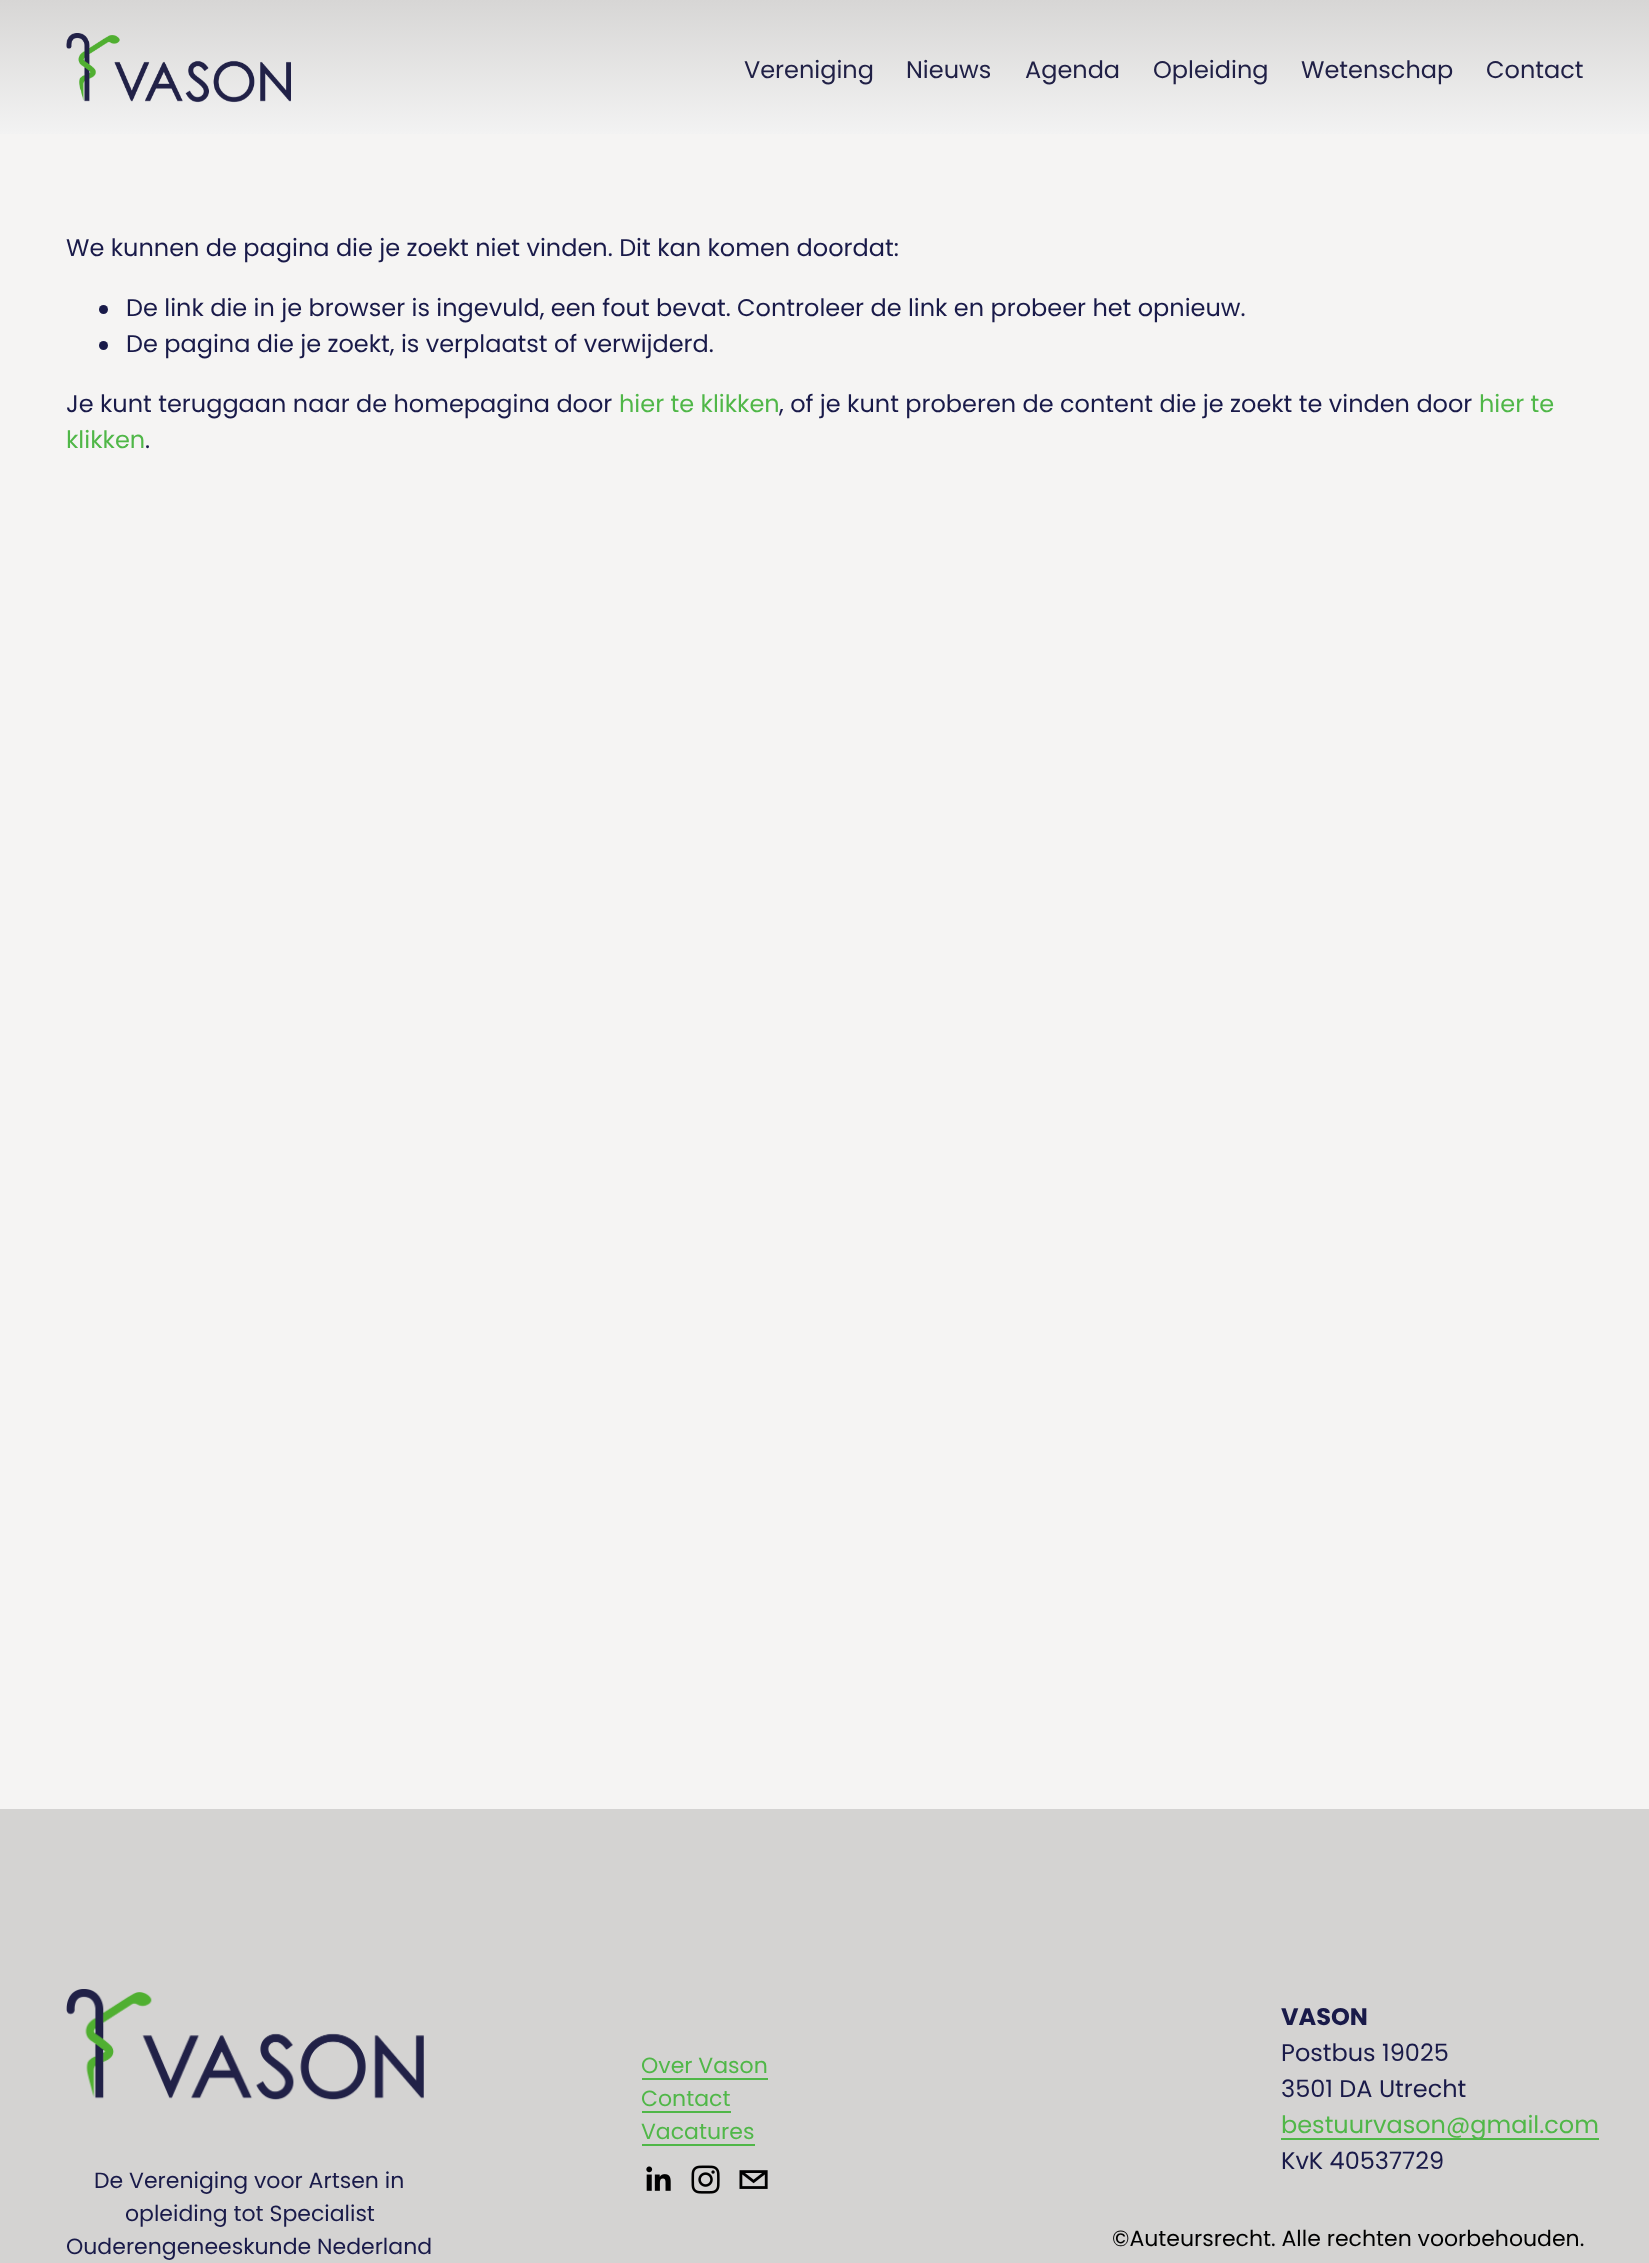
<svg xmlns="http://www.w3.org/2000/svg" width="1649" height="2263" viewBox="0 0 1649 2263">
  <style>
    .t1 { font: 24px Poppins; fill: #202046; }
    .t2 { font: 24px Poppins; fill: #191a49; }
    .t3 { font: 24px Poppins; fill: #50b748; }
    .t4 { font: 22px Poppins; fill: #50b748; }
    .t5 { font: bold 24px Poppins; fill: #191a49; }
    .t6 { font: 22px Poppins; fill: #191a49; }
    .t7 { font: 22px Poppins; fill: #000; }
  </style>
  <defs>
    <linearGradient id="g1" gradientUnits="userSpaceOnUse" x1="825" y1="0" x2="825" y2="141"><stop offset="0" stop-color="#d7d6d5"/><stop offset="1" stop-color="#f4f4f4"/></linearGradient>
  </defs>
  <rect width="100%" height="100%" fill="#f5f4f3"/>
  <rect x="0" y="0" width="1649" height="134" fill="url(#g1)"/>
  <image x="66" y="33" width="225" height="70" href="images/1.png"/>
  <text x="744" y="78" class="t1">Vereniging</text>
  <text x="906" y="78" class="t1">Nieuws</text>
  <text x="1025" y="78" class="t1">Agenda</text>
  <text x="1153" y="78" class="t1">Opleiding</text>
  <text x="1301" y="78" class="t1">Wetenschap</text>
  <text x="1486" y="78" class="t1">Contact</text>
  <text x="66" y="256" class="t2">We kunnen de pagina die je zoekt niet vinden. Dit kan komen doordat:</text>
  <circle cx="103.5" cy="309.5" r="4.5" fill="#191a49"/>
  <text x="126" y="316" class="t2">De link die in je browser is ingevuld, een fout bevat. Controleer de link en probeer het opnieuw.</text>
  <circle cx="103.5" cy="345.5" r="4.5" fill="#191a49"/>
  <text x="126" y="352" class="t2">De pagina die je zoekt, is verplaatst of verwijderd.</text>
  <text x="66" y="412" class="t2">Je kunt teruggaan naar de homepagina door</text>
  <text x="619" y="412" class="t3">hier te klikken</text>
  <text x="779" y="412" class="t2">, of je kunt proberen de content die je zoekt te vinden door</text>
  <text x="1479" y="412" class="t3">hier te</text>
  <text x="66" y="448" class="t3">klikken</text>
  <text x="145" y="448" class="t2">.</text>
  <rect x="0" y="1809" width="1649" height="454" fill="#d4d3d2"/>
  <image x="66" y="1989" width="358" height="111" href="images/2.png"/>
  <text x="641" y="2073" class="t4">Over Vason</text>
  <rect x="642" y="2078" width="126" height="2" fill="#50b748"/>
  <text x="641" y="2106" class="t4">Contact</text>
  <rect x="642" y="2111" width="89" height="2" fill="#50b748"/>
  <text x="641" y="2139" class="t4">Vacatures</text>
  <rect x="642" y="2144" width="113" height="2" fill="#50b748"/>
  <text x="1281" y="2025" class="t5">VASON</text>
  <text x="1281" y="2061" class="t2">Postbus 19025</text>
  <text x="1281" y="2097" class="t2">3501 DA Utrecht</text>
  <rect x="1281" y="2138" width="318" height="2" fill="#50b748"/>
  <text x="1281" y="2133" class="t3">bestuurvason@gmail.com</text>
  <text x="1281" y="2169" class="t2">KvK 40537729</text>
  <text x="94" y="2188" class="t6">De Vereniging voor Artsen in</text>
  <text x="125" y="2221" class="t6">opleiding tot Specialist</text>
  <text x="66" y="2254" class="t6">Ouderengeneeskunde Nederland</text>
  <image x="646" y="2166" width="25" height="25" href="images/3.png"/>
  <image x="691" y="2165" width="29" height="29" href="images/4.png"/>
  <image x="739" y="2170" width="29" height="19" href="images/5.png"/>
  <text x="1112" y="2246" class="t7">©Auteursrecht. Alle rechten voorbehouden.</text>
</svg>
